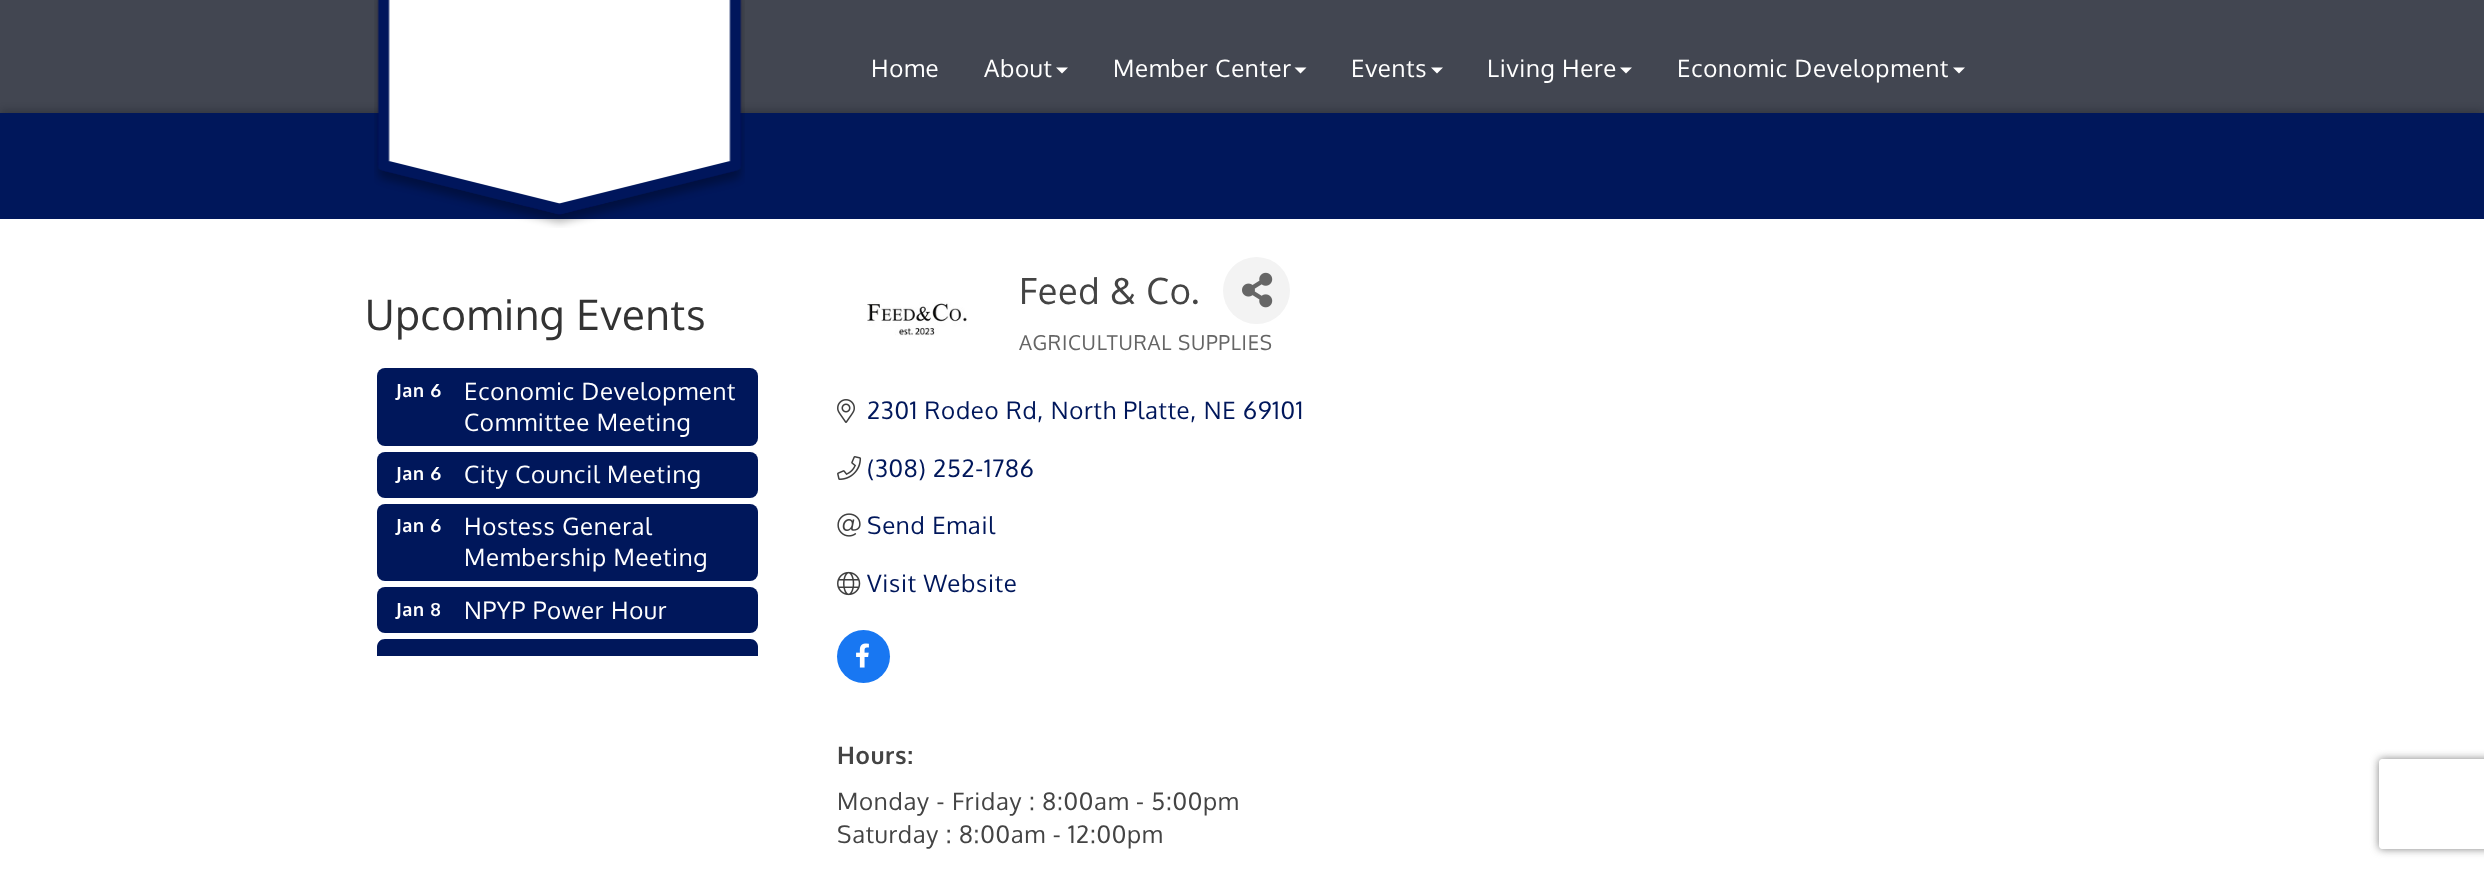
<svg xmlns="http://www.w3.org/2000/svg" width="2484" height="869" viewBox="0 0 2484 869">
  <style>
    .t1 { font: 24px Oxygen; letter-spacing: 0.75px; fill: #fff; }
    .t2 { font: 42px Oxygen; letter-spacing: 0.75px; fill: #333; }
    .t3 { font: bold 18px Oxygen; letter-spacing: 0.75px; fill: #fff; }
    .t4 { font: 36px Oxygen; letter-spacing: 0.75px; fill: #444; }
    .t5 { font: 20.4px Oxygen; letter-spacing: 0.75px; fill: #656565; }
    .t6 { font: 24px Oxygen; letter-spacing: 0.75px; fill: #00175b; }
    .t7 { font: bold 24px Oxygen; letter-spacing: 0.75px; fill: #444; }
    .t8 { font: 24px Oxygen; letter-spacing: 0.75px; fill: #444; }
  </style>
  <defs>
    <clipPath id="clip1"><path d="M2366 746H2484V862H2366ZM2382 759H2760C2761.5 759 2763 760.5 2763 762V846C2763 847.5 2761.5 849 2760 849H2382C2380.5 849 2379 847.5 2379 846V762C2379 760.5 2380.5 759 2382 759Z" clip-rule="evenodd"/></clipPath>
  </defs>
  <rect width="100%" height="100%" fill="#f3f3f3"/>
  <rect x="0" y="110" width="2484" height="106" fill="#0000004d" filter="blur(4.5px)"/>
  <rect x="0" y="0" width="2484" height="113" fill="#151a28cc"/>
  <rect x="0" y="113" width="2484" height="106" fill="#00175b"/>
  <rect x="0" y="219" width="2484" height="650" fill="#fff"/>
  <image x="374" y="0" width="371" height="228" href="images/1.png"/>
  <text x="871" y="77" class="t1">Home</text>
  <text x="984" y="77" class="t1">About</text>
  <path d="M1056 67.5H1068L1062 73.5Z" fill="#fff"/>
  <text x="1113" y="77" class="t1">Member Center</text>
  <path d="M1294.5 67.5H1306.5L1300.5 73.5Z" fill="#fff"/>
  <text x="1351" y="77" class="t1">Events</text>
  <path d="M1431 67.5H1443L1437 73.5Z" fill="#fff"/>
  <text x="1487" y="77" class="t1">Living Here</text>
  <path d="M1620 67.5H1632L1626 73.5Z" fill="#fff"/>
  <text x="1677" y="77" class="t1">Economic Development</text>
  <path d="M1953 67.5H1965L1959 73.5Z" fill="#fff"/>
  <text x="365" y="330" class="t2">Upcoming Events</text>
  <rect x="377" y="368" width="381" height="78" rx="8" fill="#00175b"/>
  <text x="396" y="397" class="t3">Jan 6</text>
  <text x="464" y="400" class="t1">Economic Development</text>
  <text x="464" y="431" class="t1">Committee Meeting</text>
  <rect x="377" y="452" width="381" height="46" rx="8" fill="#00175b"/>
  <text x="396" y="480" class="t3">Jan 6</text>
  <text x="464" y="483" class="t1">City Council Meeting</text>
  <rect x="377" y="504" width="381" height="77" rx="8" fill="#00175b"/>
  <text x="396" y="532" class="t3">Jan 6</text>
  <text x="464" y="535" class="t1">Hostess General</text>
  <text x="464" y="566" class="t1">Membership Meeting</text>
  <rect x="377" y="587" width="381" height="46" rx="8" fill="#00175b"/>
  <text x="396" y="616" class="t3">Jan 8</text>
  <text x="464" y="619" class="t1">NPYP Power Hour</text>
  <path d="M385 639H750C754.5 639 758 642.5 758 647V656H377V647C377 642.5 380.5 639 385 639Z" fill="#00175b"/>
  <image x="867" y="302" width="100" height="34" href="images/2.png"/>
  <text x="1019" y="304" class="t4">Feed &amp; Co.</text>
  <circle cx="1256.5" cy="290.5" r="33.5" fill="#f3f3f3"/>
  <image x="1242" y="272" width="31" height="36" href="images/3.png"/>
  <text x="1019" y="350" class="t5">AGRICULTURAL SUPPLIES</text>
  <image x="837" y="399" width="18" height="24" href="images/4.png"/>
  <text x="867" y="419" class="t6">2301 Rodeo Rd, North Platte, NE 69101</text>
  <image x="837" y="456" width="25" height="24" href="images/5.png"/>
  <text x="867" y="477" class="t6">(308) 252-1786</text>
  <image x="837" y="513" width="24" height="24" href="images/6.png"/>
  <text x="867" y="534" class="t6">Send Email</text>
  <image x="837" y="571" width="24" height="25" href="images/7.png"/>
  <text x="867" y="592" class="t6">Visit Website</text>
  <circle cx="863.5" cy="656.5" r="26.5" fill="#1877f2"/>
  <image x="856" y="643" width="13" height="25" href="images/8.png"/>
  <text x="837" y="764" class="t7">Hours:</text>
  <text x="837" y="810" class="t8">Monday - Friday : 8:00am - 5:00pm</text>
  <text x="837" y="843" class="t8">Saturday : 8:00am - 12:00pm</text>
  <g clip-path="url(#clip1)">
    <rect x="2379" y="759" width="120" height="90" rx="3" fill="#808080" filter="blur(4px)"/>
  </g>
</svg>
